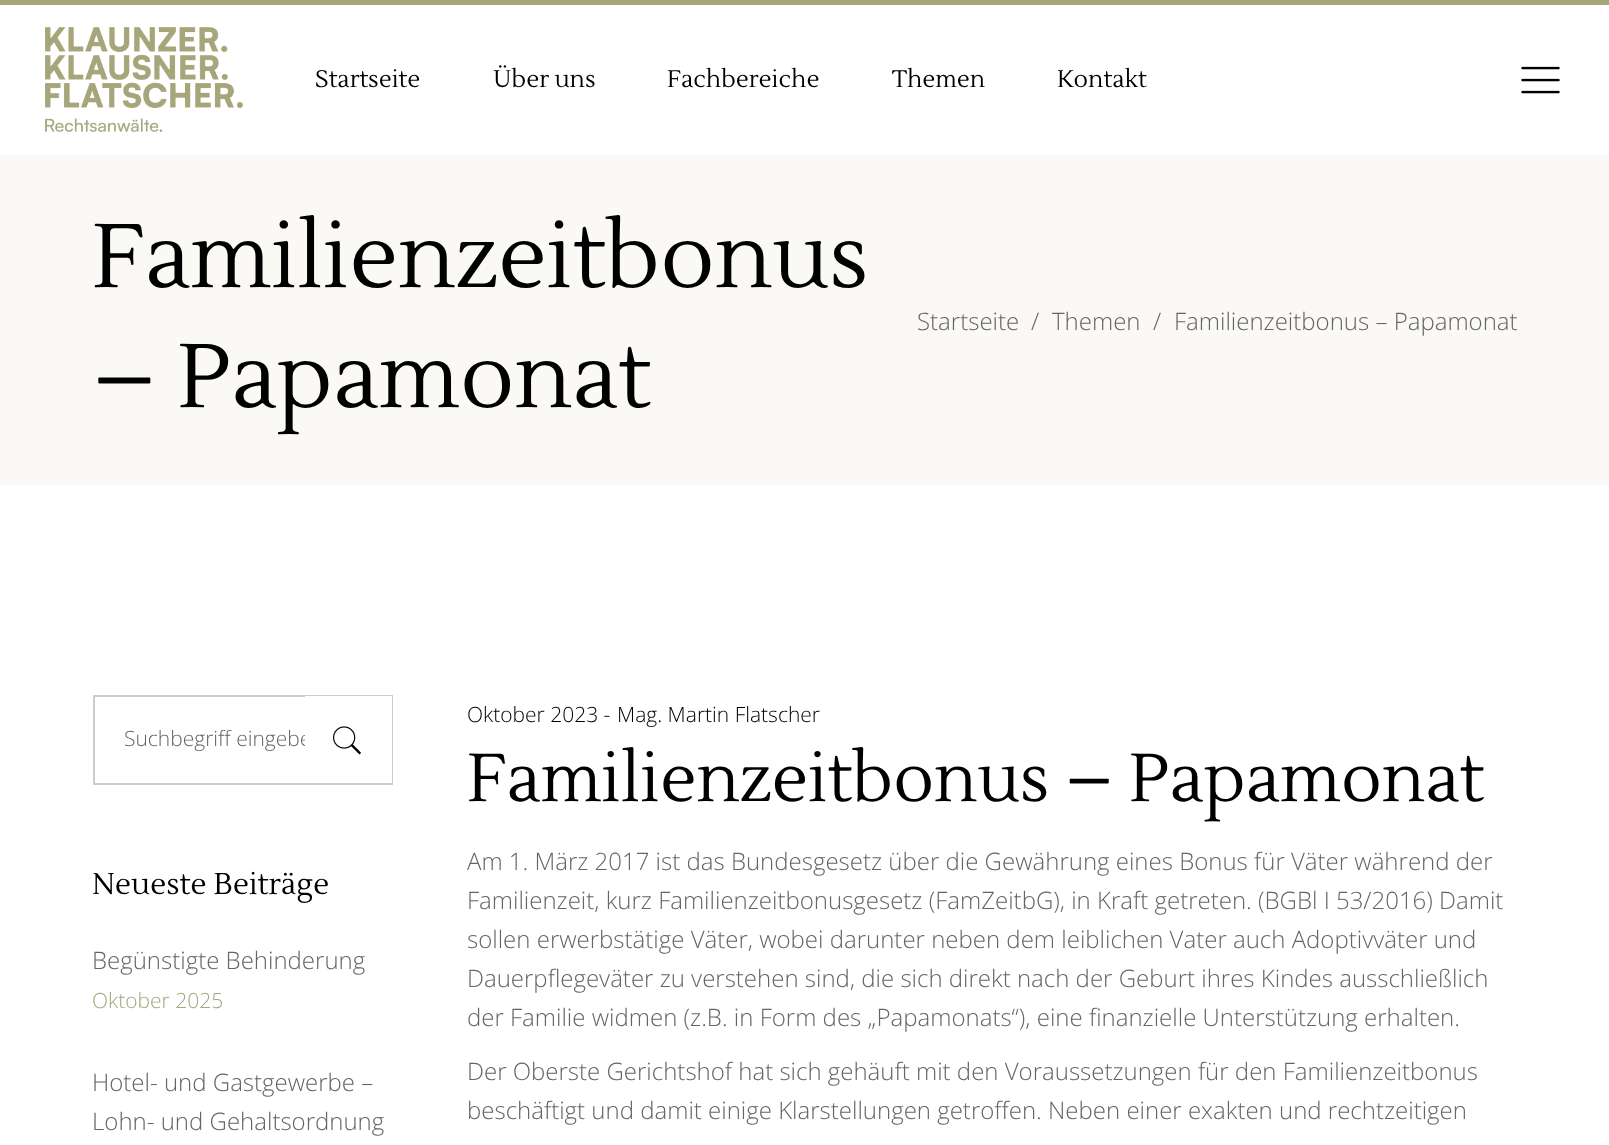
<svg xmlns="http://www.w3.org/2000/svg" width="1609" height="1145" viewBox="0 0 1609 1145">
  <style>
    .t1 { font: 24px Lustria; fill: #000; }
    .t2 { font: 90px Lustria; fill: #000; }
    .t3 { font: 300 24px Open Sans; fill: #656565; }
    .t4 { font: 300 21px Open Sans; fill: #656565; }
    .t5 { font: 30px Lustria; fill: #000; }
    .t6 { font: 300 21px Open Sans; fill: #a7a57a; }
    .t7 { font: 300 21px Open Sans; fill: #000; }
    .t8 { font: 67.5px Lustria; fill: #000; }
  </style>
  <rect width="100%" height="100%" fill="#fff"/>
  <rect x="0" y="0" width="1609" height="5" fill="#a7a57a"/>
  <image x="45" y="27" width="198" height="105" href="images/1.png"/>
  <text x="315" y="87" class="t1">Startseite</text>
  <text x="493" y="87" class="t1">Über uns</text>
  <text x="667" y="87" class="t1">Fachbereiche</text>
  <text x="892" y="87" class="t1">Themen</text>
  <text x="1057" y="87" class="t1">Kontakt</text>
  <image x="1521" y="66" width="39" height="28" href="images/2.png"/>
  <rect x="0" y="155" width="1609" height="330" fill="#fbf9f6"/>
  <text x="92" y="287" class="t2">Familienzeitbonus</text>
  <text x="92" y="407" class="t2">– Papamonat</text>
  <text x="917" y="330" class="t3">Startseite</text>
  <text x="1031" y="330" class="t3">/</text>
  <text x="1052" y="330" class="t3">Themen</text>
  <text x="1153" y="330" class="t3">/</text>
  <text x="1174" y="330" class="t3">Familienzeitbonus – Papamonat</text>
  <rect x="94" y="696" width="298" height="88" fill="none" stroke="#ccc" stroke-width="2"/>
  <text x="124" y="746" class="t4">Suchbegriff eingebe</text>
  <rect x="305" y="696" width="87" height="87" fill="#fff"/>
  <image x="333" y="726" width="28" height="29" href="images/3.png"/>
  <text x="92" y="894" class="t5">Neueste Beiträge</text>
  <text x="92" y="969" class="t3">Begünstigte Behinderung</text>
  <text x="92" y="1008" class="t6">Oktober 2025</text>
  <text x="92" y="1091" class="t3">Hotel- und Gastgewerbe –</text>
  <text x="92" y="1130" class="t3">Lohn- und Gehaltsordnung</text>
  <text x="467" y="722" class="t7">Oktober 2023 -</text>
  <text x="617" y="722" class="t7">Mag. Martin Flatscher</text>
  <text x="467" y="801" class="t8">Familienzeitbonus – Papamonat</text>
  <text x="467" y="870" class="t3">Am 1. März 2017 ist das Bundesgesetz über die Gewährung eines Bonus für Väter während der</text>
  <text x="467" y="909" class="t3">Familienzeit, kurz Familienzeitbonusgesetz (FamZeitbG), in Kraft getreten. (BGBl I 53/2016) Damit</text>
  <text x="467" y="948" class="t3">sollen erwerbstätige Väter, wobei darunter neben dem leiblichen Vater auch Adoptivväter und</text>
  <text x="467" y="987" class="t3">Dauerpflegeväter zu verstehen sind, die sich direkt nach der Geburt ihres Kindes ausschließlich</text>
  <text x="467" y="1026" class="t3">der Familie widmen (z.B. in Form des „Papamonats“), eine finanzielle Unterstützung erhalten.</text>
  <text x="467" y="1080" class="t3">Der Oberste Gerichtshof hat sich gehäuft mit den Voraussetzungen für den Familienzeitbonus</text>
  <text x="467" y="1119" class="t3">beschäftigt und damit einige Klarstellungen getroffen. Neben einer exakten und rechtzeitigen</text>
</svg>
